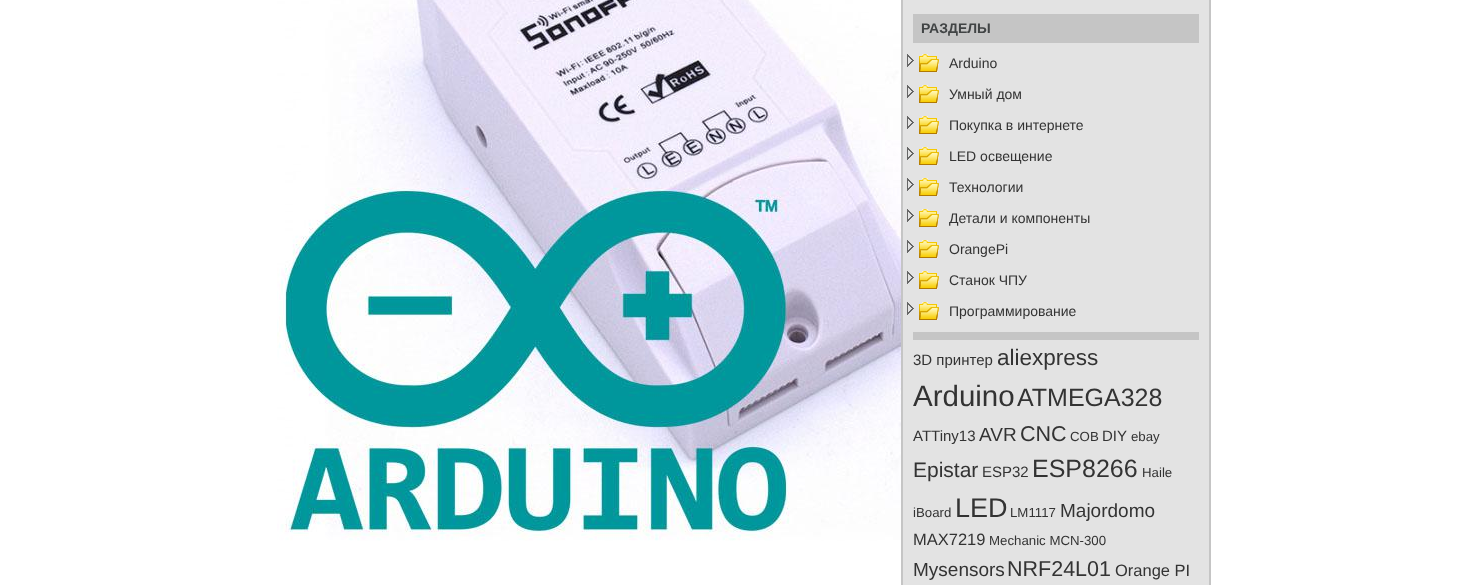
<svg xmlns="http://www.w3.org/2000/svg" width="1472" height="585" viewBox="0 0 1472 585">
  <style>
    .t1 { font: bold 14px Liberation Sans; fill: #414445; }
    .t2 { font: 14px Liberation Sans; fill: #333; }
    .t3 { font: 15px Liberation Sans; fill: #333; }
    .t4 { font: 22.5px Liberation Sans; fill: #333; }
    .t5 { font: 29.5px Liberation Sans; fill: #333; }
    .t6 { font: 25px Liberation Sans; fill: #333; }
    .t7 { font: 19px Liberation Sans; fill: #333; }
    .t8 { font: 21.5px Liberation Sans; fill: #333; }
    .t9 { font: 13.25px Liberation Sans; fill: #333; }
    .t10 { font: 21px Liberation Sans; fill: #333; }
    .t11 { font: 27px Liberation Sans; fill: #333; }
    .t12 { font: 16.5px Liberation Sans; fill: #333; }
  </style>
  <rect width="100%" height="100%" fill="#fff"/>
  <image x="277" y="0" width="624" height="541" href="images/1.png"/>
  <rect x="902" y="-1" width="308" height="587" fill="#e3e3e3" stroke="#c5c5c5" stroke-width="2"/>
  <rect x="913" y="14" width="286" height="29" fill="#c5c5c5"/>
  <text x="921" y="33" class="t1">РАЗДЕЛЫ</text>
  <image x="919" y="54" width="20" height="18" href="images/2.png"/>
  <image x="907" y="54" width="7" height="13" href="images/3.png"/>
  <text x="949" y="68" class="t2">Arduino</text>
  <image x="919" y="85" width="20" height="18" href="images/2.png"/>
  <image x="907" y="85" width="7" height="13" href="images/3.png"/>
  <text x="949" y="99" class="t2">Умный дом</text>
  <image x="919" y="116" width="20" height="18" href="images/2.png"/>
  <image x="907" y="116" width="7" height="13" href="images/3.png"/>
  <text x="949" y="130" class="t2">Покупка в интернете</text>
  <image x="919" y="147" width="20" height="18" href="images/2.png"/>
  <image x="907" y="147" width="7" height="13" href="images/3.png"/>
  <text x="949" y="161" class="t2">LED освещение</text>
  <image x="919" y="178" width="20" height="18" href="images/2.png"/>
  <image x="907" y="178" width="7" height="13" href="images/3.png"/>
  <text x="949" y="192" class="t2">Технологии</text>
  <image x="919" y="209" width="20" height="18" href="images/2.png"/>
  <image x="907" y="209" width="7" height="13" href="images/3.png"/>
  <text x="949" y="223" class="t2">Детали и компоненты</text>
  <image x="919" y="240" width="20" height="18" href="images/2.png"/>
  <image x="907" y="240" width="7" height="13" href="images/3.png"/>
  <text x="949" y="254" class="t2">OrangePi</text>
  <image x="919" y="271" width="20" height="18" href="images/2.png"/>
  <image x="907" y="271" width="7" height="13" href="images/3.png"/>
  <text x="949" y="285" class="t2">Станок ЧПУ</text>
  <image x="919" y="302" width="20" height="18" href="images/2.png"/>
  <image x="907" y="302" width="7" height="13" href="images/3.png"/>
  <text x="949" y="316" class="t2">Программирование</text>
  <rect x="913" y="332" width="286" height="8" fill="#c5c5c5"/>
  <text x="913" y="365" class="t3">3D принтер</text>
  <text x="997" y="365" class="t4">aliexpress</text>
  <text x="913" y="406" class="t5">Arduino</text>
  <text x="1017" y="406" class="t6">ATMEGA328</text>
  <text x="913" y="441" class="t3">ATTiny13</text>
  <text x="979" y="441" class="t7">AVR</text>
  <text x="1020" y="441" class="t8">CNC</text>
  <text x="1070" y="441" class="t9">COB</text>
  <text x="1102" y="441" class="t3">DIY</text>
  <text x="1131" y="441" class="t9">ebay</text>
  <text x="913" y="477" class="t10">Epistar</text>
  <text x="982" y="477" class="t3">ESP32</text>
  <text x="1032" y="477" class="t6">ESP8266</text>
  <text x="1142" y="477" class="t9">Haile</text>
  <text x="913" y="517" class="t9">iBoard</text>
  <text x="955" y="517" class="t11">LED</text>
  <text x="1010" y="517" class="t9">LM1117</text>
  <text x="1060" y="517" class="t7">Majordomo</text>
  <text x="913" y="545" class="t12">MAX7219</text>
  <text x="989" y="545" class="t9">Mechanic MCN-300</text>
  <text x="913" y="576" class="t7">Mysensors</text>
  <text x="1007" y="576" class="t8">NRF24L01</text>
  <text x="1115" y="576" class="t12">Orange PI</text>
</svg>
